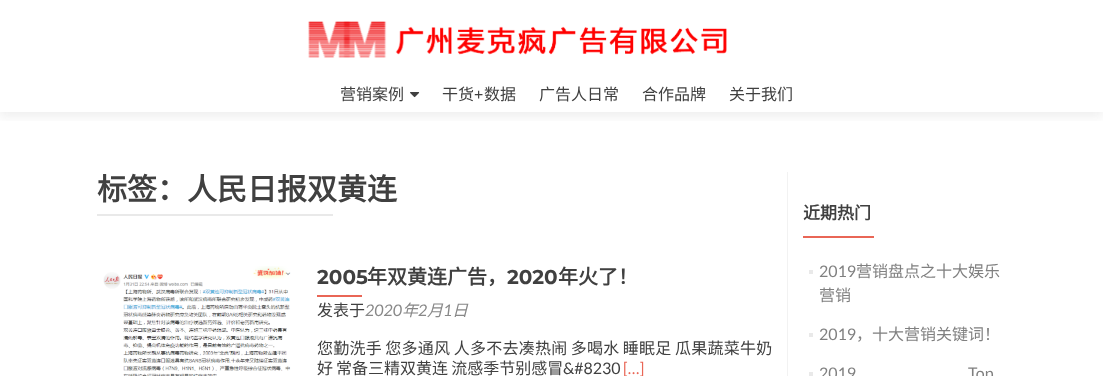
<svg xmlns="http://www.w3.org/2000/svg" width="1103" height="376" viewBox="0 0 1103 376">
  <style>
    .t1 { font: 16px Noto Sans CJK SC; fill: #404040; }
    .t2 { font: 16px Lato; fill: #404040; }
    .t3 { font: bold 30px Noto Sans CJK SC; fill: #404040; }
    .t4 { font: bold 20px Montserrat; fill: #404040; }
    .t5 { font: bold 20px Noto Sans CJK SC; fill: #404040; }
    .t6 { font: italic 16px Lato; fill: #888; }
    .t7 { font: italic 16px Noto Sans CJK SC; fill: #888; }
    .t8 { font: 16px Noto Sans CJK SC; letter-spacing: 0.25px; fill: #404040; }
    .t9 { font: 16px Lato; fill: #e96656; }
    .t10 { font: bold 17px Noto Sans CJK SC; fill: #404040; }
    .t11 { font: 16px Lato; fill: #808080; }
    .t12 { font: 16px Noto Sans CJK SC; fill: #808080; }
  </style>
  <defs>
    <clipPath id="clip1"><rect x="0" y="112" width="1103" height="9"/></clipPath>
  </defs>
  <rect width="100%" height="100%" fill="#fff"/>
  <g clip-path="url(#clip1)">
    <rect x="0" y="5" width="1103" height="112" fill="#32323214" filter="blur(5.5px)"/>
  </g>
  <image x="308" y="21" width="419" height="37" href="images/1.png"/>
  <text x="340" y="100" class="t1">营销案例</text>
  <image x="410" y="92" width="10" height="6" href="images/2.png"/>
  <text x="442" y="100" class="t1">干货</text>
  <text x="474" y="100" class="t2">+</text>
  <text x="484" y="100" class="t1">数据</text>
  <text x="539" y="100" class="t1">广告人日常</text>
  <text x="642" y="100" class="t1">合作品牌</text>
  <text x="729" y="100" class="t1">关于我们</text>
  <text x="97" y="200" class="t3">标签：人民日报双黄连</text>
  <rect x="97" y="214" width="236" height="2" fill="#e9e9e9"/>
  <image x="103" y="266" width="188" height="110" href="images/3.png"/>
  <text x="317" y="284" class="t4">2005</text>
  <text x="367" y="284" class="t5">年双黄连广告，</text>
  <text x="507" y="284" class="t4">2020</text>
  <text x="558" y="284" class="t5">年火了！</text>
  <rect x="317" y="295" width="45" height="2" fill="#e96656"/>
  <text x="317" y="316" class="t1">发表于</text>
  <text x="365" y="316" class="t6">2020</text>
  <text x="402" y="316" class="t7">年</text>
  <text x="418" y="316" class="t6">2</text>
  <text x="427" y="316" class="t7">月</text>
  <text x="443" y="316" class="t6">1</text>
  <text x="452" y="316" class="t7">日</text>
  <text x="317" y="354" word-spacing="-0.5" class="t8">您勤洗手 您多通风 人多不去凑热闹 多喝水 睡眠足 瓜果蔬菜牛奶</text>
  <text x="317" y="374" word-spacing="-0.5" class="t1">好 常备三精双黄连 流感季节别感冒</text>
  <text x="563" y="374" class="t2">&amp;#8230</text>
  <text x="623" y="374" class="t9">[…]</text>
  <rect x="787" y="172" width="1" height="204" fill="#f2f2f2"/>
  <text x="803" y="219" class="t10">近期热门</text>
  <rect x="803" y="236" width="71" height="2" fill="#e96656"/>
  <rect x="809" y="270" width="4" height="4" fill="#e9e9e9"/>
  <text x="819" y="277" class="t11">2019</text>
  <text x="856" y="277" class="t12">营销盘点之十大娱乐</text>
  <text x="819" y="301" class="t12">营销</text>
  <rect x="809" y="333" width="4" height="4" fill="#e9e9e9"/>
  <text x="819" y="340" class="t11">2019</text>
  <text x="856" y="340" class="t12">，十大营销关键词！</text>
  <rect x="809" y="372" width="4" height="4" fill="#e9e9e9"/>
  <text x="819" y="379" class="t11">2019</text>
  <text x="968" y="379" class="t11">Top</text>
</svg>
